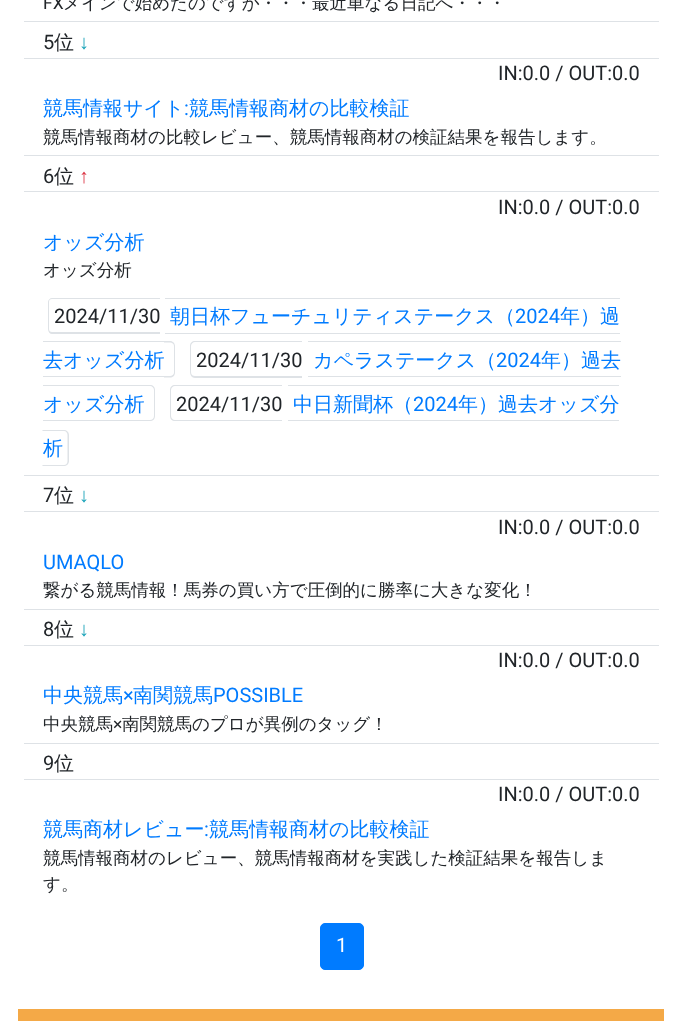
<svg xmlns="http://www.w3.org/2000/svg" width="682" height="1021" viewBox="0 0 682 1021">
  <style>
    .t1 { font: 17.5px Roboto; fill: #212529; }
    .t2 { font: 500 17.5px WenQuanYi Zen Hei; fill: #212529; }
    .t3 { font: 20px Roboto; fill: #212529; }
    .t4 { font: 500 20px WenQuanYi Zen Hei; fill: #212529; }
    .t5 { font: bold 20px Liberation Sans; fill: #17a2b8; }
    .t6 { font: 500 20px WenQuanYi Zen Hei; fill: #007bff; }
    .t7 { font: 20px Roboto; fill: #007bff; }
    .t8 { font: bold 20px Liberation Sans; fill: #dc3545; }
    .t9 { font: 20px Roboto; fill: #fff; }
  </style>
  <rect width="100%" height="100%" fill="#fff"/>
  <text x="43" y="9" class="t1">FX</text>
  <text x="63" y="9" class="t2">メインで始めたのですが・・・最近単なる日記へ・・・</text>
  <rect x="24" y="21" width="635" height="1" fill="#dee2e6"/>
  <text x="43" y="49" class="t3">5</text>
  <text x="54" y="49" class="t4">位</text>
  <text x="79" y="49" class="t5">↓</text>
  <rect x="24" y="58" width="635" height="1" fill="#dee2e6"/>
  <text x="498" y="80" class="t3">IN:0.0 / OUT:0.0</text>
  <text x="43" y="115" class="t6">競馬情報サイト</text>
  <text x="184" y="115" class="t7">:</text>
  <text x="189" y="115" class="t6">競馬情報商材の比較検証</text>
  <text x="43" y="143" class="t2">競馬情報商材の比較レビュー、競馬情報商材の検証結果を報告します。</text>
  <rect x="24" y="155" width="635" height="1" fill="#dee2e6"/>
  <text x="43" y="183" class="t3">6</text>
  <text x="54" y="183" class="t4">位</text>
  <text x="79" y="183" class="t8">↑</text>
  <rect x="24" y="191" width="635" height="1" fill="#dee2e6"/>
  <text x="498" y="214" class="t3">IN:0.0 / OUT:0.0</text>
  <text x="43" y="249" class="t6">オッズ分析</text>
  <text x="43" y="276" class="t2">オッズ分析</text>
  <path d="M52 298H160V334H52C50 334 48 332 48 329V302C48 300 50 298 52 298ZM52 299H160V332H52C50 332 49 331 49 329V302C49 300 50 299 52 299Z" fill="#dee2e6" fill-rule="evenodd"/>
  <text x="54" y="323" class="t3">2024/11/30</text>
  <text x="170" y="323" class="t6">朝日杯フューチュリティステークス（</text>
  <rect x="165" y="333" width="455" height="1" fill="#dee2e6"/>
  <text x="515" y="323" class="t7">2024</text>
  <rect x="165" y="298" width="455" height="1" fill="#dee2e6"/>
  <text x="560" y="323" class="t6">年）過</text>
  <text x="43" y="367" class="t6">去オッズ分析</text>
  <rect x="43" y="341" width="121" height="1" fill="#dee2e6"/>
  <rect x="43" y="376" width="121" height="1" fill="#dee2e6"/>
  <path d="M164 341H170C173 341 175 343.5 175 346V372.5C175 375.5 173 377.5 170 377.5H164ZM164 342.5H170C172 342.5 174 344 174 346V372.5C174 374.5 172 376 170 376H164Z" fill="#dee2e6" fill-rule="evenodd"/>
  <path d="M195 341H302V378H195C192 378 190 375 190 372V346C190 343 192 341 195 341ZM195 342H302V376H195C193 376 191 375 191 372V346C191 344 193 342 195 342Z" fill="#dee2e6" fill-rule="evenodd"/>
  <text x="196" y="367" class="t3">2024/11/30</text>
  <text x="313" y="367" class="t6">カペラステークス（</text>
  <rect x="308" y="376" width="313" height="1" fill="#dee2e6"/>
  <text x="496" y="367" class="t7">2024</text>
  <rect x="308" y="341" width="313" height="1" fill="#dee2e6"/>
  <text x="541" y="367" class="t6">年）過去</text>
  <text x="43" y="411" class="t6">オッズ分析</text>
  <rect x="43" y="385" width="101" height="1" fill="#dee2e6"/>
  <rect x="43" y="420" width="101" height="1" fill="#dee2e6"/>
  <path d="M144 385H150C153 385 155 387 155 390V416C155 419 153 421 150 421H144ZM144 386H150C152 386 154 388 154 390V416C154 418.5 152 420 150 420H144Z" fill="#dee2e6" fill-rule="evenodd"/>
  <path d="M175 385H282V421H175C172 421 170 419 170 416V390C170 387 172 385 175 385ZM175 386H282V420H175C173 420 171 418 171 416V390C171 388 173 386 175 386Z" fill="#dee2e6" fill-rule="evenodd"/>
  <text x="176" y="411" class="t3">2024/11/30</text>
  <text x="293" y="411" class="t6">中日新聞杯（</text>
  <rect x="288" y="420" width="331" height="1" fill="#dee2e6"/>
  <text x="413" y="411" class="t7">2024</text>
  <rect x="288" y="385" width="331" height="1" fill="#dee2e6"/>
  <text x="458" y="411" class="t6">年）過去オッズ分</text>
  <path d="M42.5 430H64C66.5 430 69 432 69 435V461C69 464 66.5 466 64 466H42.5ZM42.5 431H64C66 431 67.5 433 67.5 435V461C67.5 463.5 66 465 64 465H42.5Z" fill="#dee2e6" fill-rule="evenodd"/>
  <text x="43" y="455" class="t6">析</text>
  <rect x="24" y="475" width="635" height="1" fill="#dee2e6"/>
  <text x="43" y="502" class="t3">7</text>
  <text x="54" y="502" class="t4">位</text>
  <text x="79" y="502" class="t5">↓</text>
  <rect x="24" y="511" width="635" height="1" fill="#dee2e6"/>
  <text x="498" y="534" class="t3">IN:0.0 / OUT:0.0</text>
  <text x="43" y="569" class="t7">UMAQLO</text>
  <text x="43" y="596" class="t2">繋がる競馬情報！馬券の買い方で圧倒的に勝率に大きな変化！</text>
  <rect x="24" y="609" width="635" height="1" fill="#dee2e6"/>
  <text x="43" y="636" class="t3">8</text>
  <text x="54" y="636" class="t4">位</text>
  <text x="79" y="636" class="t5">↓</text>
  <rect x="24" y="645" width="635" height="1" fill="#dee2e6"/>
  <text x="498" y="667" class="t3">IN:0.0 / OUT:0.0</text>
  <text x="43" y="702" class="t6">中央競馬</text>
  <text x="123" y="702" class="t7">×</text>
  <text x="133" y="702" class="t6">南関競馬</text>
  <text x="213" y="702" class="t7">POSSIBLE</text>
  <text x="43" y="730" class="t2">中央競馬</text>
  <text x="113" y="730" class="t1">×</text>
  <text x="122" y="730" class="t2">南関競馬のプロが異例のタッグ！</text>
  <rect x="24" y="743" width="635" height="1" fill="#dee2e6"/>
  <text x="43" y="770" class="t3">9</text>
  <text x="54" y="770" class="t4">位</text>
  <rect x="24" y="779" width="635" height="1" fill="#dee2e6"/>
  <text x="498" y="801" class="t3">IN:0.0 / OUT:0.0</text>
  <text x="43" y="836" class="t6">競馬商材レビュー</text>
  <text x="204" y="836" class="t7">:</text>
  <text x="209" y="836" class="t6">競馬情報商材の比較検証</text>
  <text x="43" y="864" class="t2">競馬情報商材のレビュー、競馬情報商材を実践した検証結果を報告しま</text>
  <text x="43" y="890" class="t2">す。</text>
  <rect x="320.5" y="923.5" width="43" height="46" rx="4.5" fill="#007bff" stroke="#007bff"/>
  <text x="336" y="952" class="t9">1</text>
  <rect x="18" y="1009" width="646" height="12" fill="#f4a947"/>
</svg>
